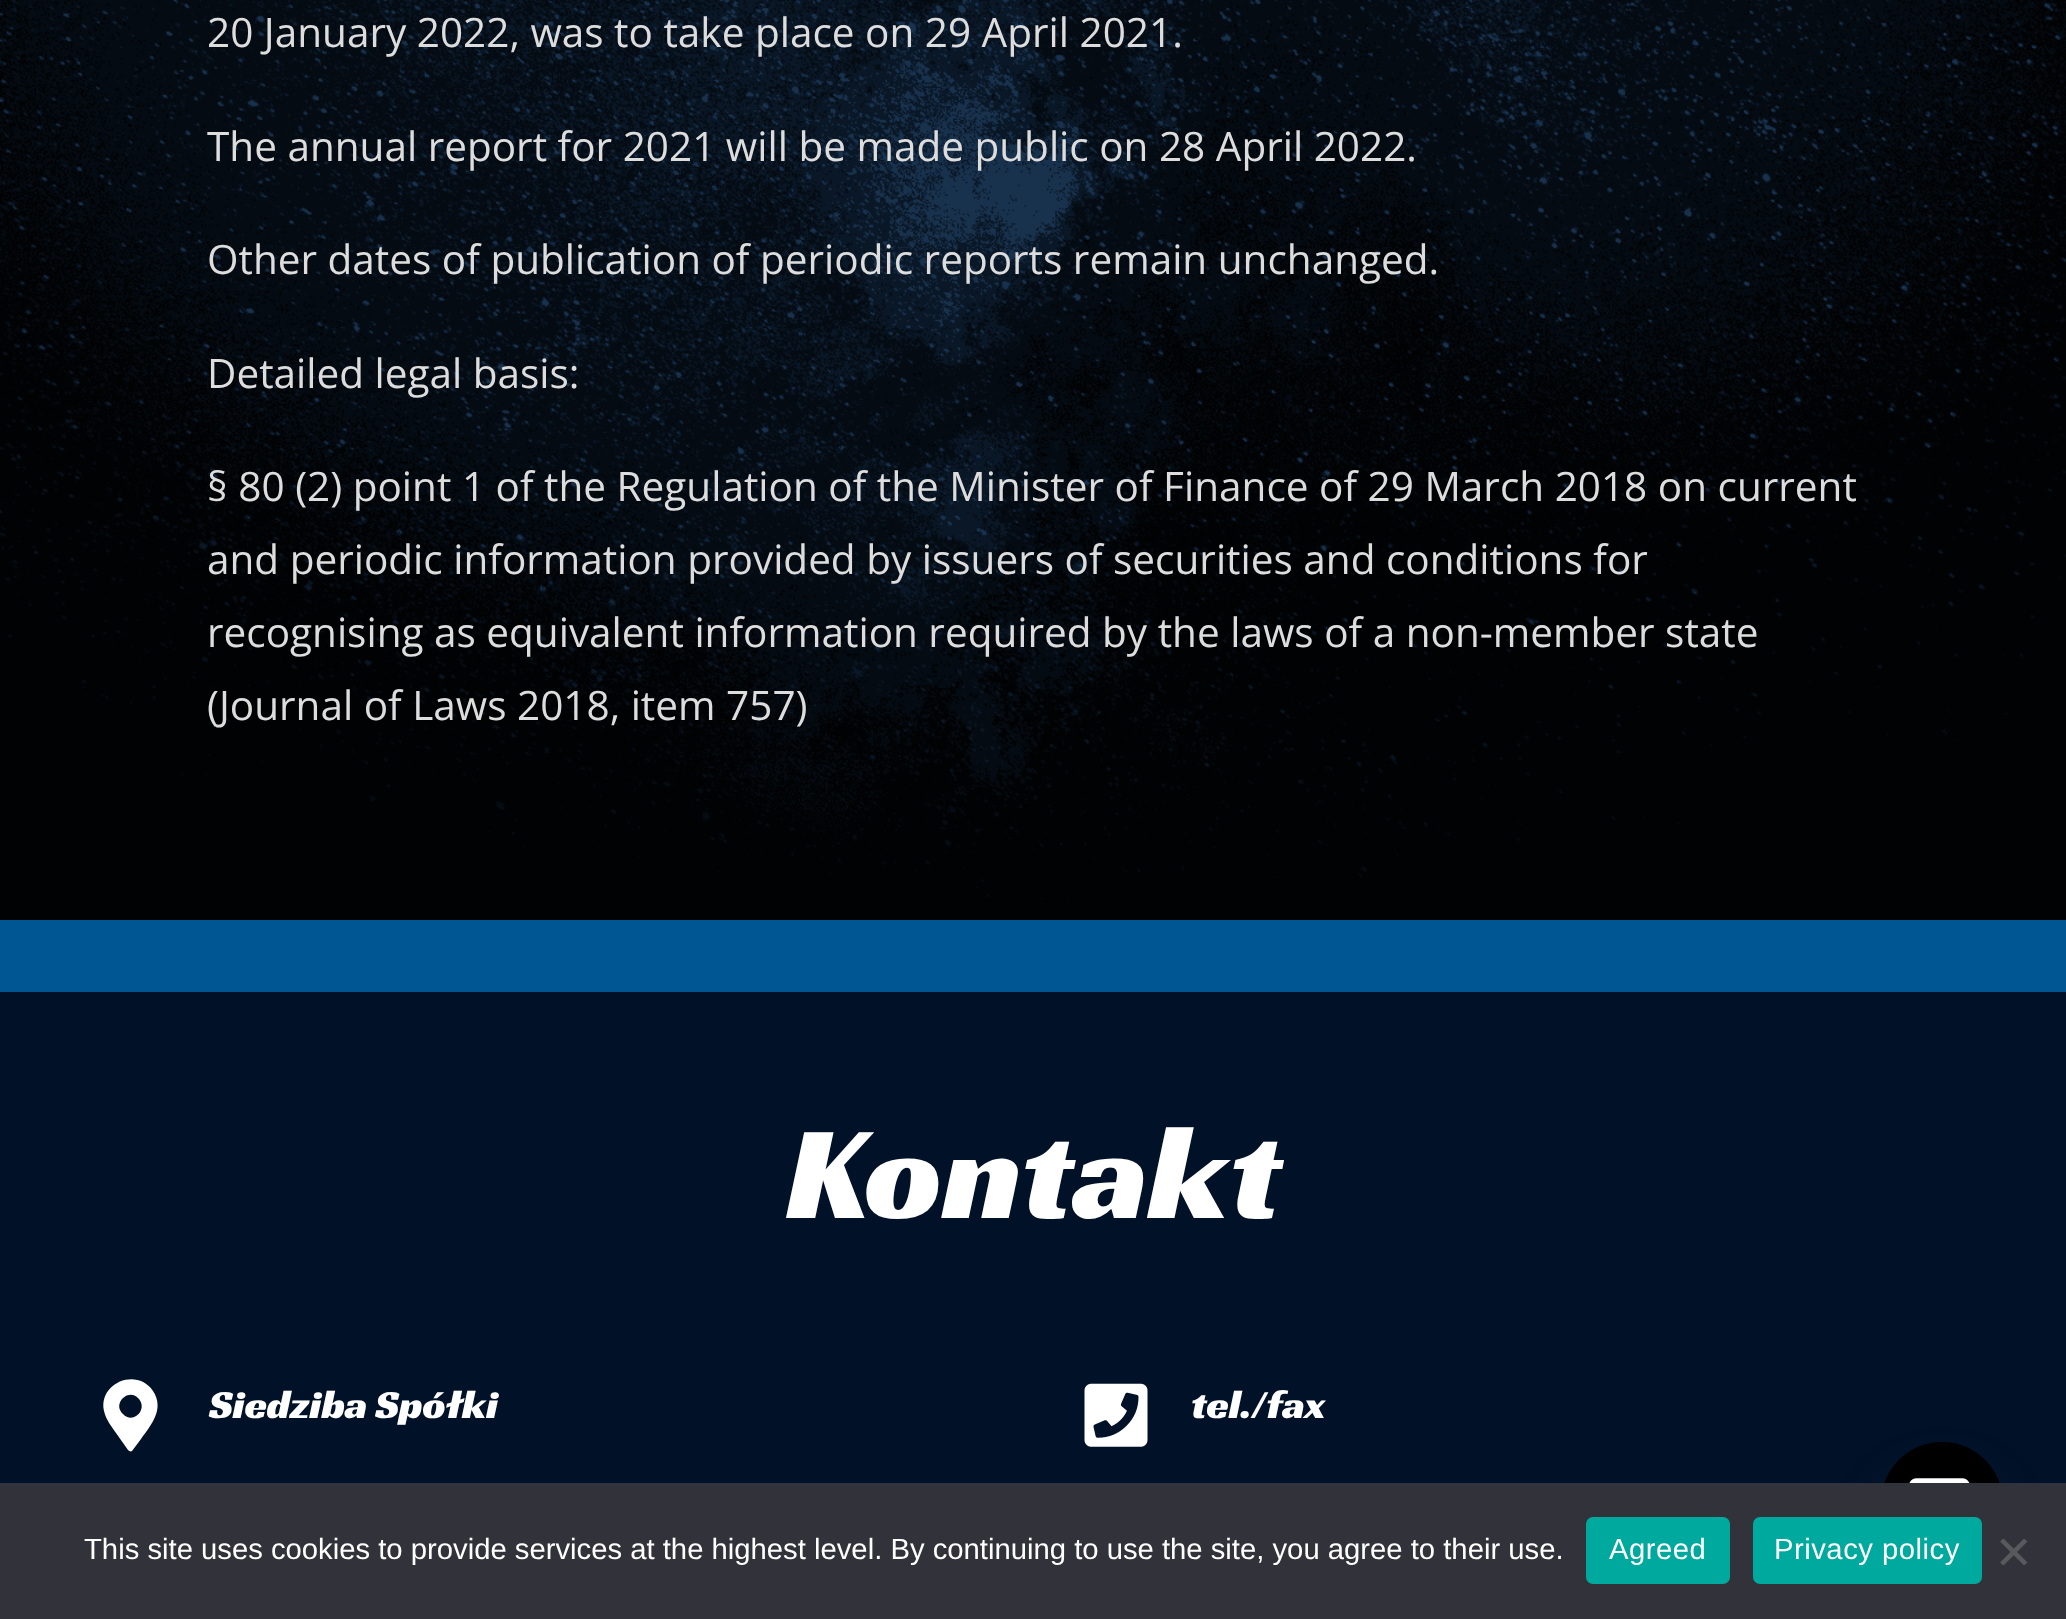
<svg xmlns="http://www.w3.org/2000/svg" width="2066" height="1619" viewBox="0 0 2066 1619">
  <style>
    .t1 { font: 40.5px Open Sans; fill: #ddd; }
    .t2 { font: 135px Racing Sans One; fill: #fff; }
    .t3 { font: 40.5px Racing Sans One; fill: #fff; }
    .t4 { font: 29.25px Liberation Sans; fill: #fff; }
    .t5 { font: 29.25px Liberation Sans; letter-spacing: 0.5px; fill: #fff; }
  </style>
  <rect width="100%" height="100%" fill="#fff"/>
  <image x="0" y="0" width="2066" height="920" href="images/1.png"/>
  <text x="207" y="47" class="t1">20 January 2022, was to take place on 29 April 2021.</text>
  <text x="207" y="161" class="t1">The annual report for 2021 will be made public on 28 April 2022.</text>
  <text x="207" y="274" class="t1">Other dates of publication of periodic reports remain unchanged.</text>
  <text x="207" y="388" class="t1">Detailed legal basis:</text>
  <text x="207" y="501" class="t1">§ 80 (2) point 1 of the Regulation of the Minister of Finance of 29 March 2018 on current</text>
  <text x="207" y="574" class="t1">and periodic information provided by issuers of securities and conditions for</text>
  <text x="207" y="647" class="t1">recognising as equivalent information required by the laws of a non-member state</text>
  <text x="207" y="720" class="t1">(Journal of Laws 2018, item 757)</text>
  <rect x="0" y="920" width="2066" height="72" fill="#005693"/>
  <rect x="0" y="992" width="2066" height="491" fill="#001128"/>
  <text x="786" y="1218" class="t2">Kontakt</text>
  <path d="M128 1450L116 1433C112 1427 106 1420 104 1411C98 1383 137 1367 153 1391C165 1409 151 1425 141 1439L132 1451C131 1452 129 1451 128 1450ZM123 1414C133 1425 149 1409 138 1398C128 1388 112 1404 123 1414Z" fill="#fff"/>
  <text x="209" y="1418" class="t3">Siedziba Spółki</text>
  <image x="1084" y="1383" width="64" height="64" href="images/2.png"/>
  <text x="1191" y="1418" class="t3">tel./fax</text>
  <rect x="1881" y="1478" width="122" height="122" rx="61" fill="#49687e29" filter="blur(27px)"/>
  <image x="1884" y="1442" width="116" height="41" href="images/3.png"/>
  <rect x="0" y="1483" width="2066" height="136" fill="#32323a"/>
  <text x="84" y="1559" class="t4">This site uses cookies to provide services at the highest level. By continuing to use the site, you agree to their use.</text>
  <rect x="1586" y="1517" width="144" height="67" rx="7" fill="#00a99d"/>
  <text x="1609" y="1559" class="t5">Agreed</text>
  <rect x="1753" y="1517" width="229" height="67" rx="7" fill="#00a99d"/>
  <text x="1774" y="1559" class="t5">Privacy policy</text>
  <path d="M2024 1538.5L2027.5 1541.5L2003.5 1565.5L2000 1562.5Z" fill="#59595d"/>
  <path d="M2000 1541.5L2003.5 1538.5L2027.5 1562.5L2024 1565.5Z" fill="#59595d"/>
</svg>
